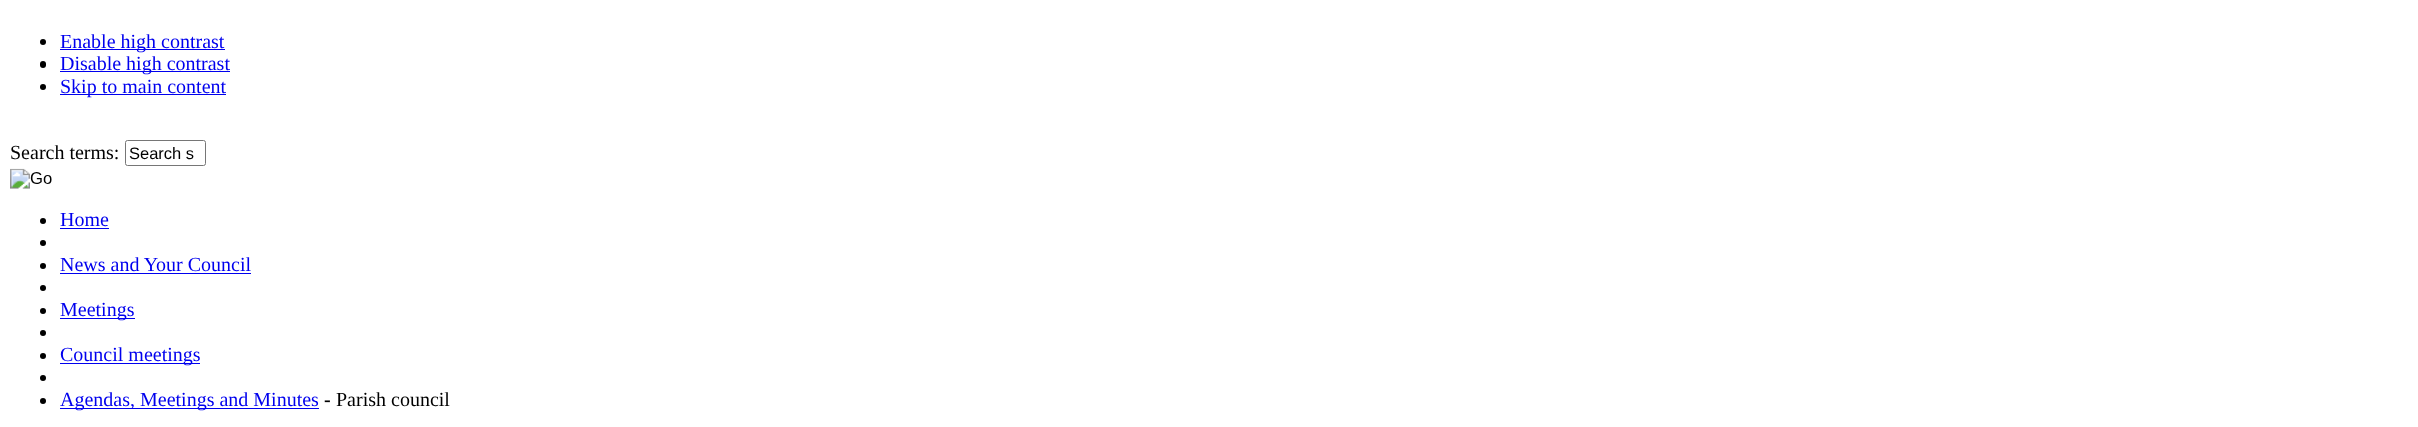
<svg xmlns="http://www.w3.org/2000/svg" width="2418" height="427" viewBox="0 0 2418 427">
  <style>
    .t1 { font: 20px Liberation Serif; fill: #00e; }
    .t2 { font: 20px Liberation Serif; fill: #000; }
    .t3 { font: 16.5px Liberation Sans; fill: #000; }
    .t4 { font: bold 20px Liberation Serif; fill: #000; }
  </style>
  <rect width="100%" height="100%" fill="#fff"/>
  <circle cx="43" cy="42" r="3" fill="#000"/>
  <rect x="60" y="49" width="165" height="1" fill="#00e"/>
  <text x="60" y="48" class="t1">Enable high contrast</text>
  <rect x="40" y="61" width="6" height="7" rx="3" fill="#000"/>
  <rect x="60" y="71" width="170" height="1" fill="#00e"/>
  <text x="60" y="70" class="t1">Disable high contrast</text>
  <circle cx="43" cy="87" r="3" fill="#000"/>
  <rect x="60" y="94" width="166" height="1" fill="#00e"/>
  <text x="60" y="93" class="t1">Skip to main content</text>
  <text x="10" y="159" class="t2">Search terms:</text>
  <rect x="125.5" y="140.5" width="80" height="25" rx="2" fill="none" stroke="#767676"/>
  <text x="129" y="159" class="t3">Search s</text>
  <image x="10" y="168" width="42" height="21" href="images/1.png"/>
  <circle cx="43" cy="221" r="3" fill="#000"/>
  <text x="60" y="226" class="t1">Home</text>
  <rect x="60" y="228" width="49" height="1" fill="#00e"/>
  <circle cx="43" cy="243" r="3" fill="#000"/>
  <circle cx="43" cy="266" r="3" fill="#000"/>
  <text x="60" y="271" class="t1">News and Your Council</text>
  <rect x="60" y="273" width="191" height="1" fill="#00e"/>
  <circle cx="43" cy="288" r="3" fill="#000"/>
  <circle cx="43" cy="311" r="3" fill="#000"/>
  <rect x="60" y="318" width="75" height="1" fill="#00e"/>
  <text x="60" y="316" class="t1">Meetings</text>
  <circle cx="43" cy="333" r="3" fill="#000"/>
  <circle cx="43" cy="356" r="3" fill="#000"/>
  <rect x="60" y="363" width="140" height="1" fill="#00e"/>
  <text x="60" y="361" class="t1">Council meetings</text>
  <circle cx="43" cy="378" r="3" fill="#000"/>
  <circle cx="43" cy="401" r="3" fill="#000"/>
  <rect x="60" y="408" width="259" height="1" fill="#00e"/>
  <text x="60" y="406" class="t1">Agendas, Meetings and Minutes</text>
  <text x="324" y="406" class="t4">-</text>
  <text x="336" y="406" class="t2">Parish council</text>
</svg>
